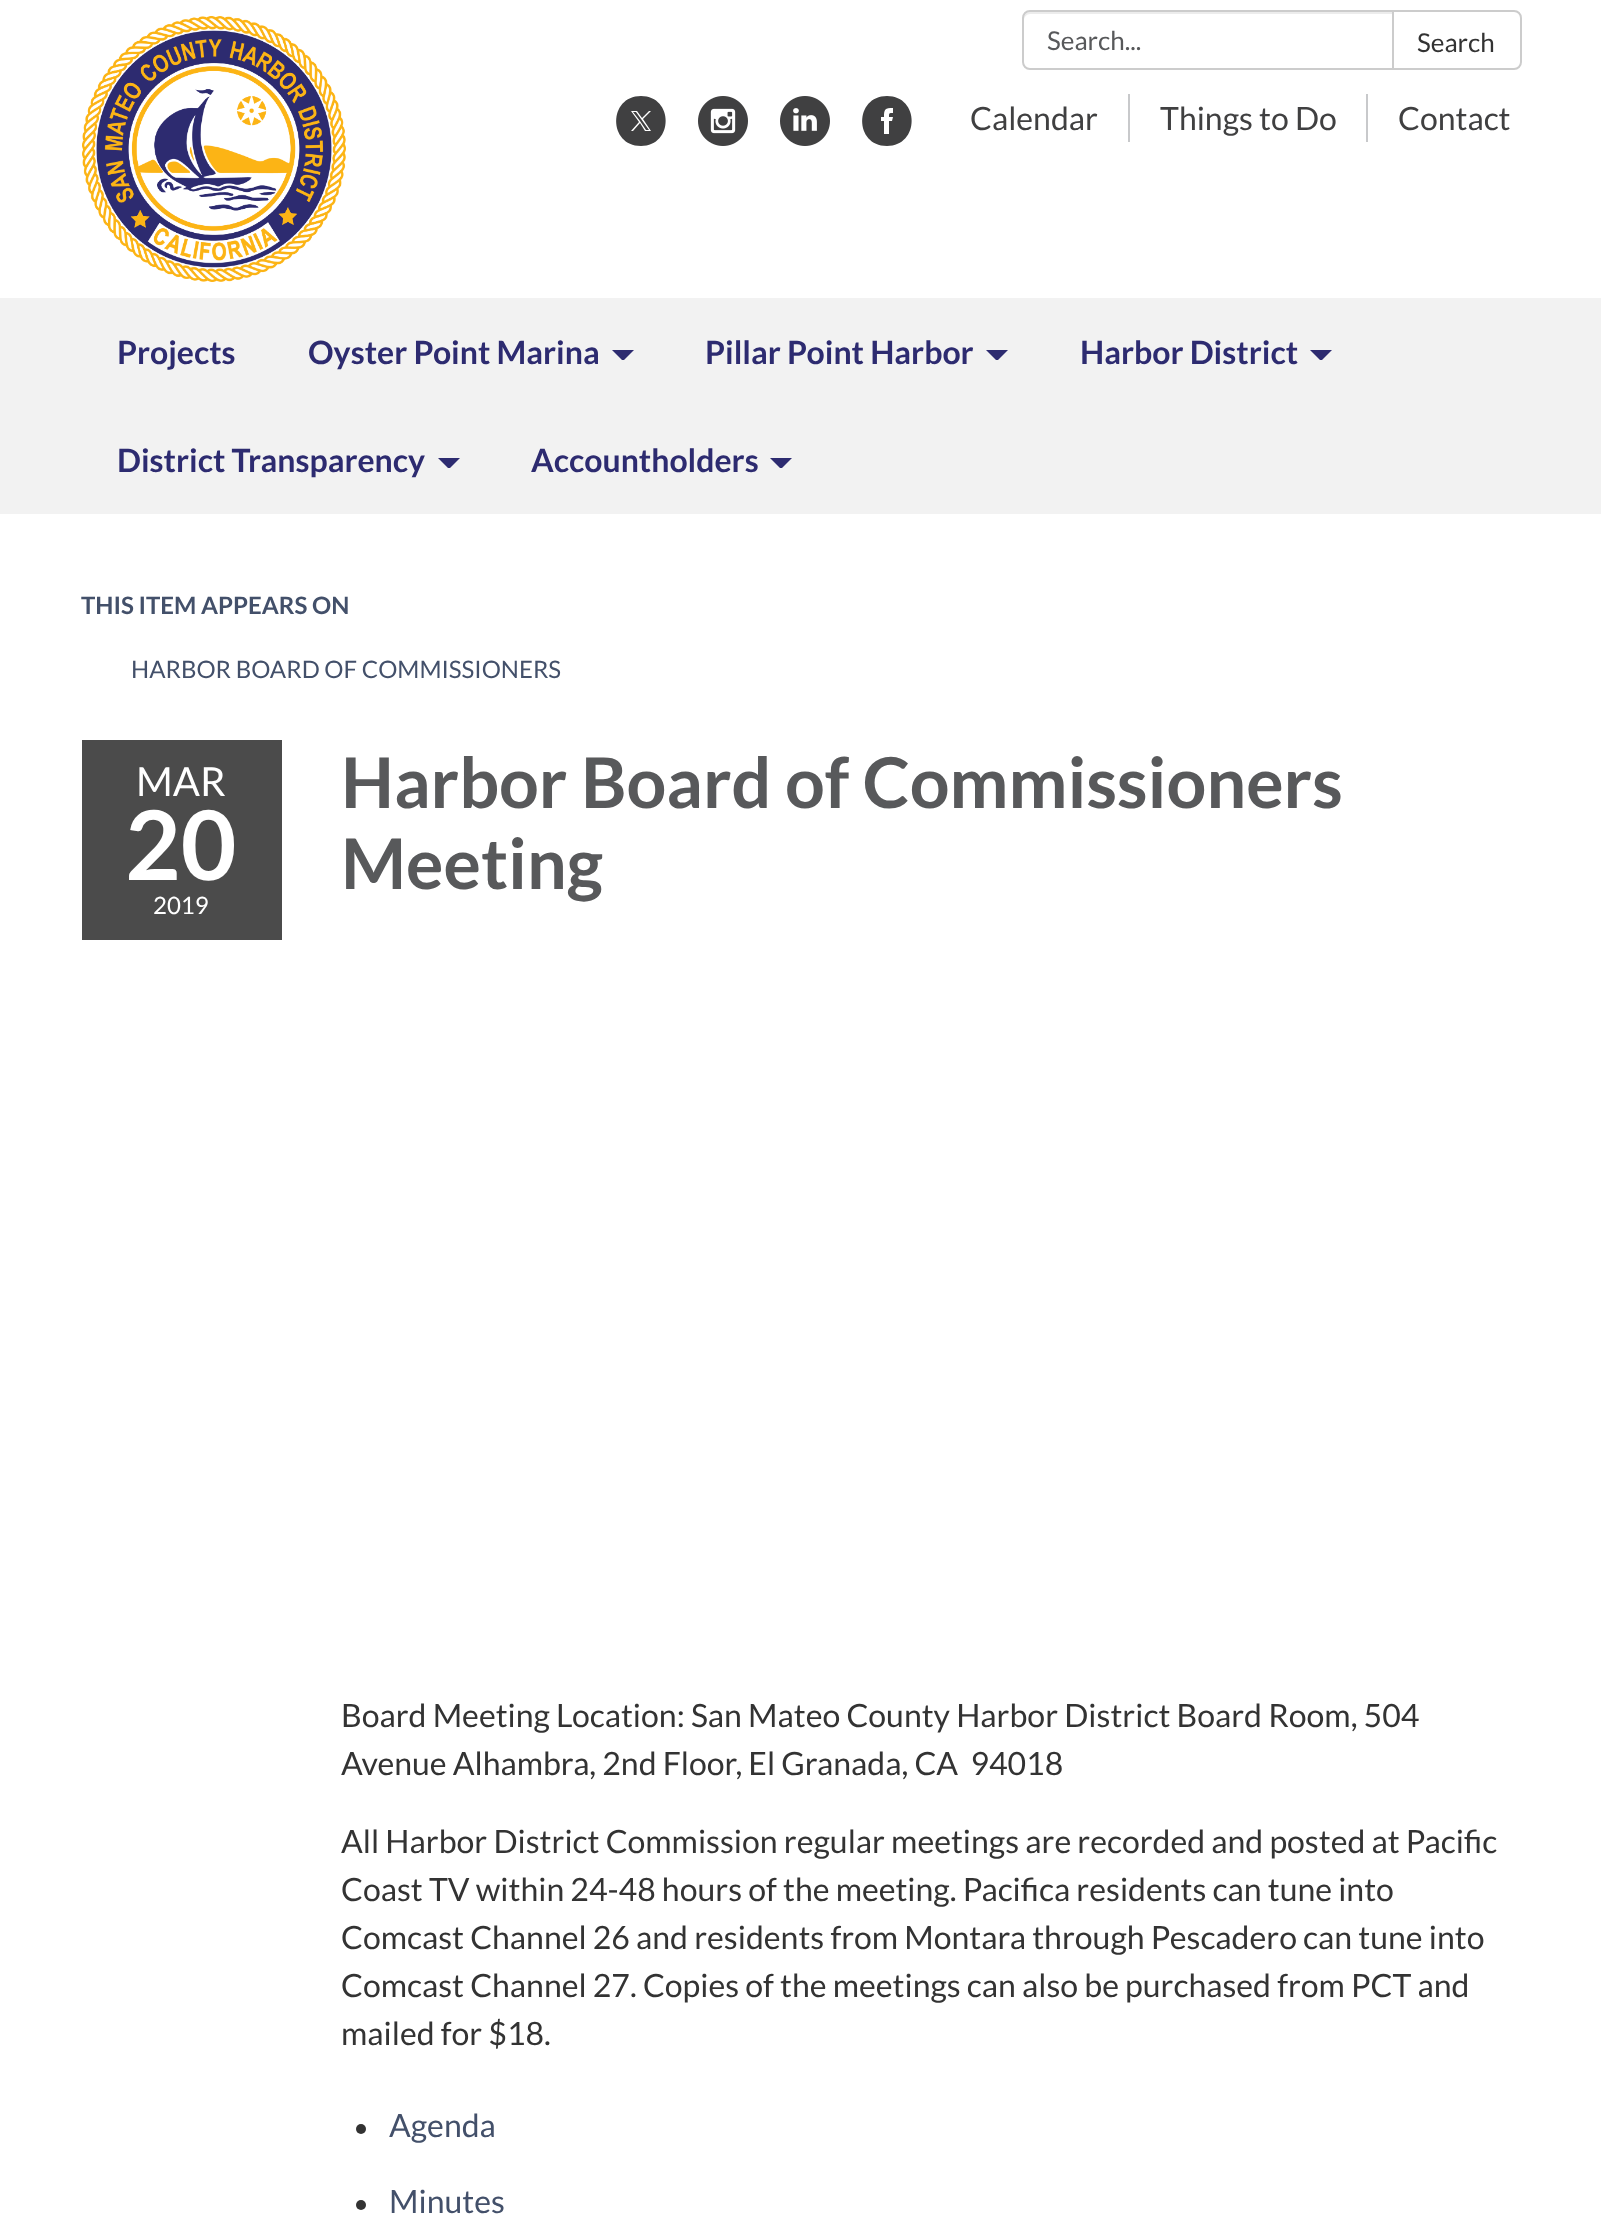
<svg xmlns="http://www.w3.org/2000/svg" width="1601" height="2230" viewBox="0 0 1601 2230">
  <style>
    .t1 { font: 26px Lato; fill: #58595b; }
    .t2 { font: 26px Lato; fill: #333; }
    .t3 { font: 32px Lato; fill: #404041; }
    .t4 { font: bold 32px Lato; fill: #2d2b70; }
    .t5 { font: bold 24px Lato; fill: #43506a; }
    .t6 { font: 24px Lato; fill: #43506a; }
    .t7 { font: 40px Lato; fill: #fff; }
    .t8 { font: bold 96px Lato; fill: #fff; }
    .t9 { font: 24px Lato; fill: #fff; }
    .t10 { font: bold 70px Lato; fill: #58595b; }
    .t11 { font: 32px Lato; fill: #333; }
    .t12 { font: 32px Lato; fill: #43506a; }
  </style>
  <rect width="100%" height="100%" fill="#fff"/>
  <image x="82" y="16" width="264" height="266" href="images/1.png"/>
  <path d="M1030 14H1392V12H1030C1027 12 1024 15 1024 18V20C1024 17 1027 14 1030 14Z" fill="#ececec"/>
  <path d="M1030 11H1393V69H1030C1026 69 1023 66 1023 62V18C1023 14 1026 11 1030 11Z" fill="none" stroke="#ccc" stroke-width="2"/>
  <text x="1047" y="50" class="t1">Search...</text>
  <path d="M1393 11H1514C1518 11 1521 14 1521 18V62C1521 66 1518 69 1514 69H1393Z" fill="#fff" stroke="#ccc" stroke-width="2"/>
  <text x="1417" y="52" class="t2">Search</text>
  <path d="M641 146C674 146 674 96 641 96C608 96 608 146 641 146ZM651 111L643 119L651 131H645L640 123L633 131H631L639 122L631 111H637L642 118L649 111ZM640 121L646 130H649L636 112H633Z" fill="#404041" fill-rule="evenodd"/>
  <image x="698" y="96" width="50" height="50" href="images/2.png"/>
  <image x="780" y="96" width="50" height="50" href="images/3.png"/>
  <path d="M887 96C854 96 854 146 887 146C920 146 920 96 887 96ZM892 121H889V134H884V121H881V117H884C884 109 885 108 893 108V113C889 113 889 113 889 117H893Z" fill="#404041"/>
  <text x="970" y="130" class="t3">Calendar</text>
  <rect x="1128" y="94" width="2" height="48" fill="#c8c9cb"/>
  <text x="1160" y="130" class="t3">Things to Do</text>
  <rect x="1366" y="94" width="2" height="48" fill="#c8c9cb"/>
  <text x="1398" y="130" class="t3">Contact</text>
  <rect x="0" y="298" width="1601" height="216" fill="#f2f2f2"/>
  <text x="117" y="364" class="t4">Projects</text>
  <text x="308" y="364" class="t4">Oyster Point Marina</text>
  <path d="M612 350H634L624 360H622Z" fill="#2d2b70"/>
  <text x="705" y="364" class="t4">Pillar Point Harbor</text>
  <path d="M986 350H1008L998 360H996Z" fill="#2d2b70"/>
  <text x="1080" y="364" class="t4">Harbor District</text>
  <path d="M1310 350H1332L1322 360H1320Z" fill="#2d2b70"/>
  <text x="117" y="472" class="t4">District Transparency</text>
  <path d="M438 458H460L450 468H448Z" fill="#2d2b70"/>
  <text x="531" y="472" class="t4">Accountholders</text>
  <path d="M770 458H792L782 468H780Z" fill="#2d2b70"/>
  <text x="81" y="614" class="t5">THIS ITEM APPEARS ON</text>
  <text x="131" y="678" class="t6">HARBOR BOARD OF COMMISSIONERS</text>
  <rect x="82" y="740" width="200" height="200" fill="#4b4b4b"/>
  <text x="136" y="796" class="t7">MAR</text>
  <text x="125" y="880" class="t8">20</text>
  <text x="153" y="914" class="t9">2019</text>
  <text x="341" y="808" class="t10">Harbor Board of Commissioners</text>
  <text x="341" y="889" class="t10">Meeting</text>
  <text x="341" y="1727" class="t11">Board Meeting Location: San Mateo County Harbor District Board Room, 504</text>
  <text x="341" y="1775" class="t11" xml:space="preserve">Avenue Alhambra, 2nd Floor, El Granada, CA  94018</text>
  <text x="341" y="1853" class="t11">All Harbor District Commission regular meetings are recorded and posted at Pacific</text>
  <text x="341" y="1901" class="t11">Coast TV within 24-48 hours of the meeting. Pacifica residents can tune into</text>
  <text x="341" y="1949" class="t11">Comcast Channel 26 and residents from Montara through Pescadero can tune into</text>
  <text x="341" y="1997" class="t11">Comcast Channel 27. Copies of the meetings can also be purchased from PCT and</text>
  <text x="341" y="2045" class="t11">mailed for $18.</text>
  <circle cx="361" cy="2129" r="5" fill="#333"/>
  <text x="389" y="2137" class="t12">Agenda</text>
  <circle cx="361" cy="2205" r="5" fill="#333"/>
  <text x="389" y="2213" class="t12">Minutes</text>
</svg>
